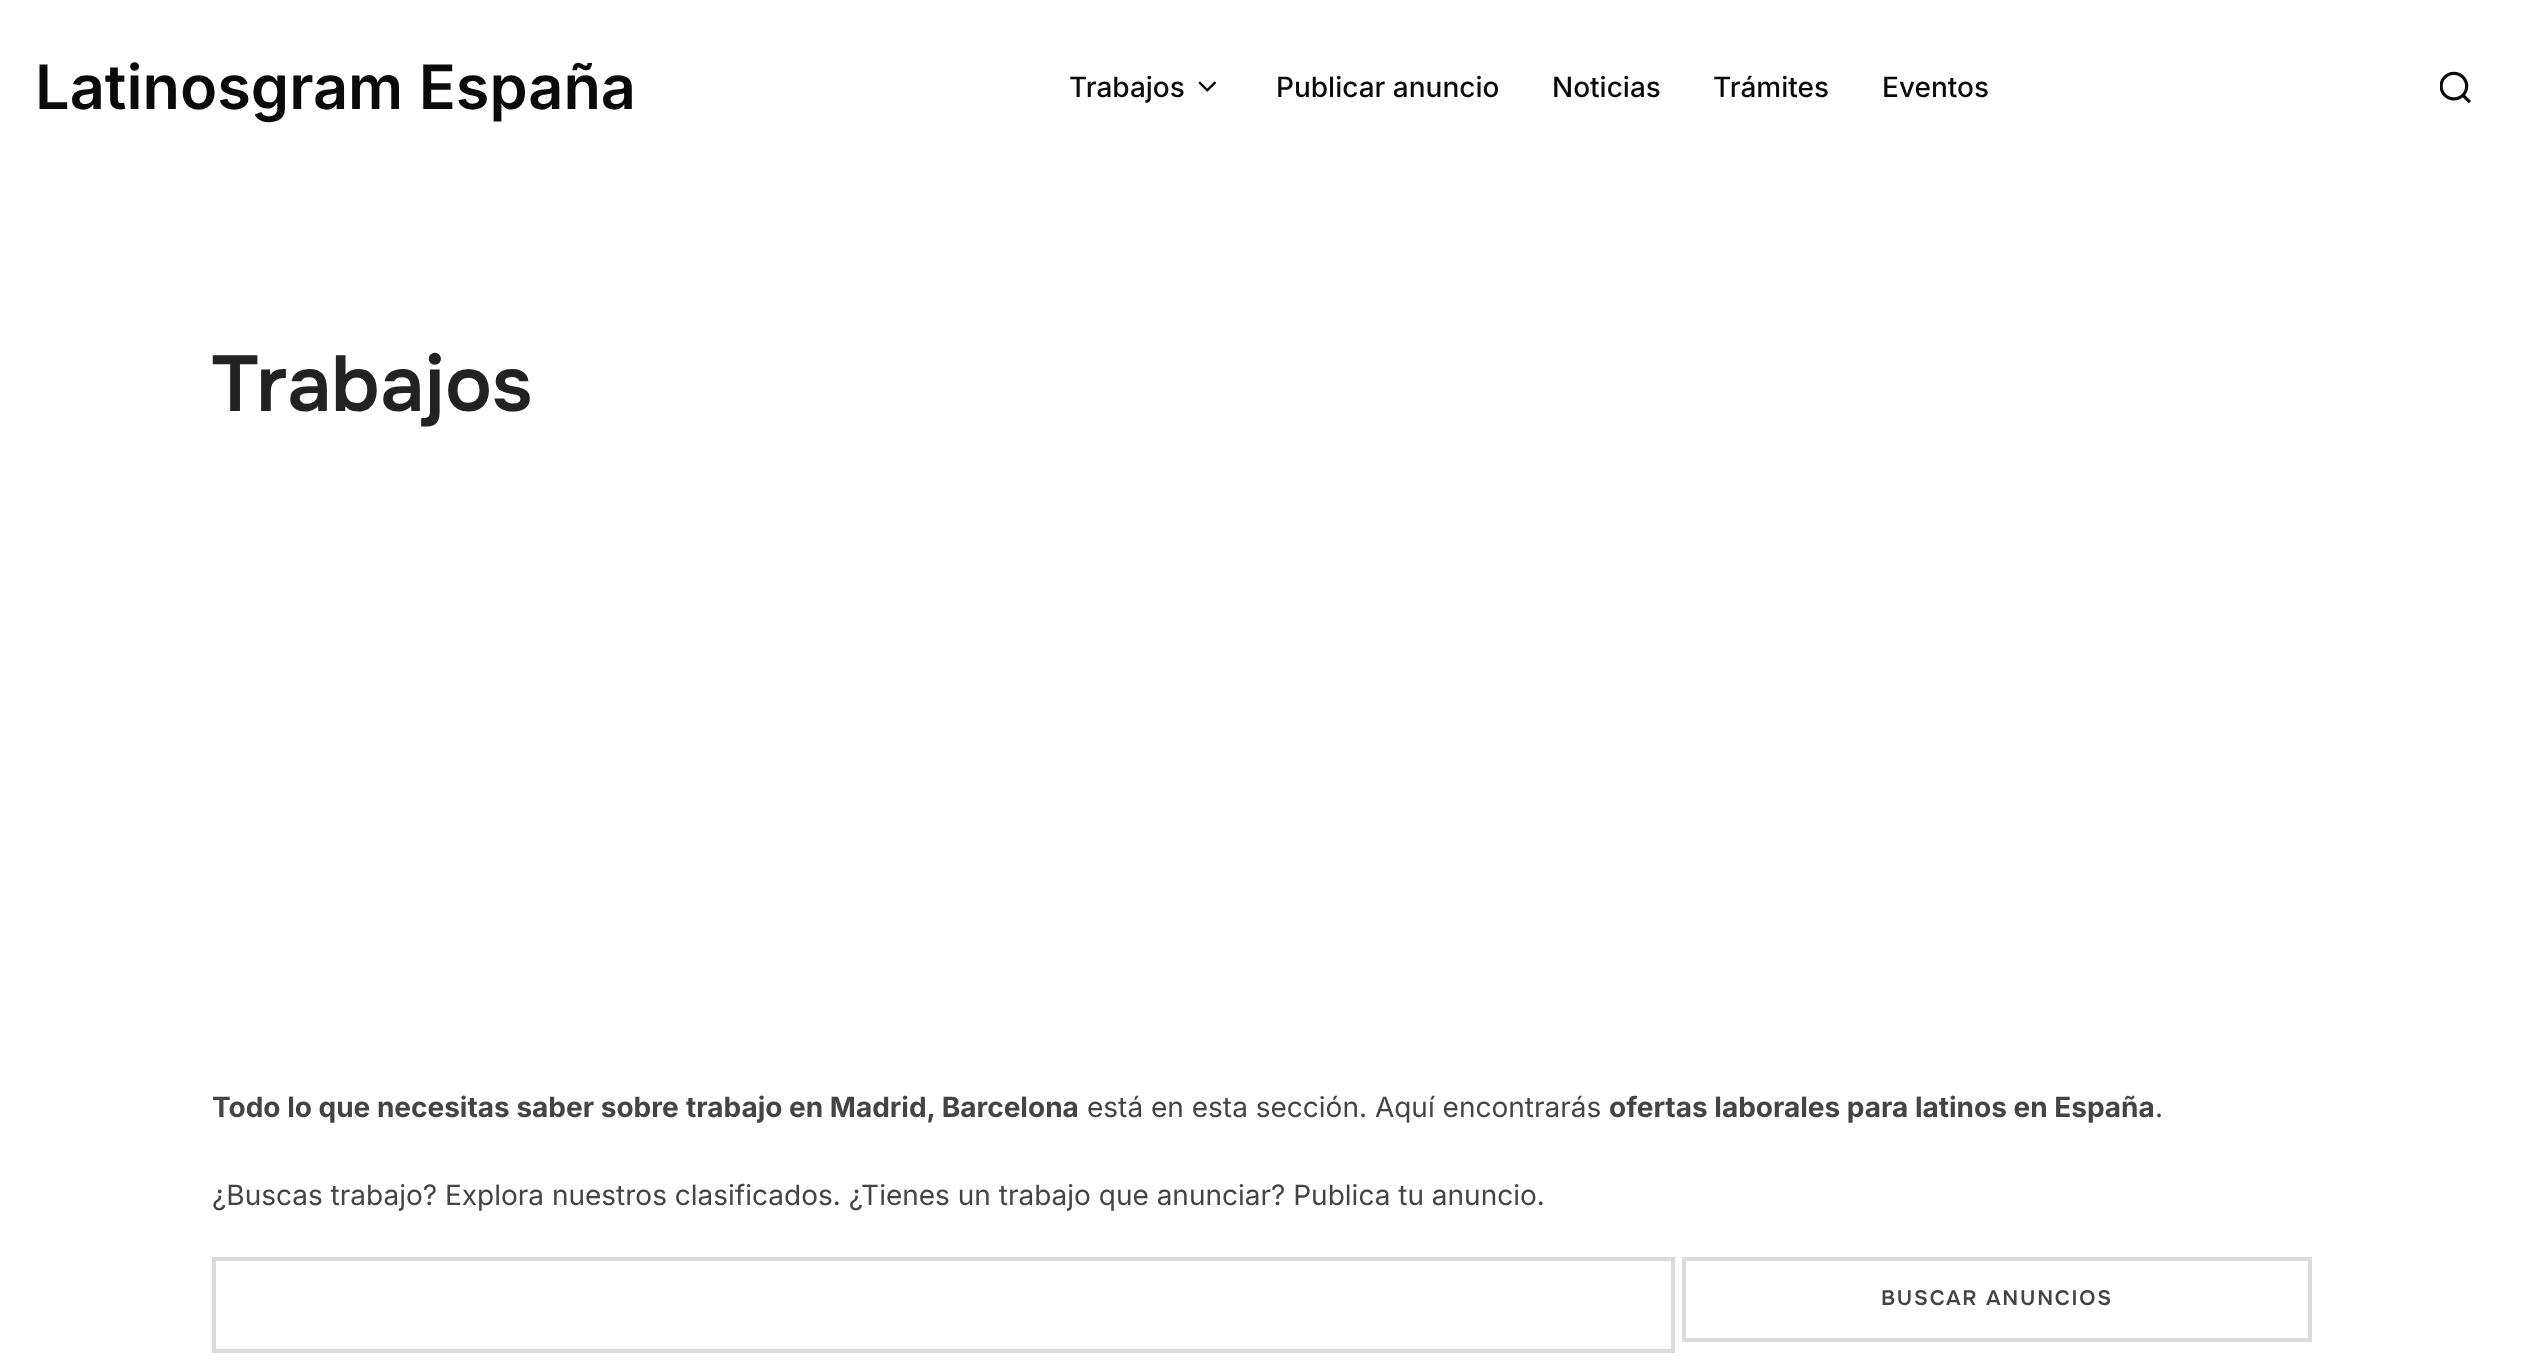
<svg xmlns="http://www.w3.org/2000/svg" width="2522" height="1369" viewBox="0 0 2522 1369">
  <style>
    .t1 { font: 600 61.25px Inter; fill: #0a0a0a; }
    .t2 { font: 500 28px Inter; fill: #0a0a0a; }
    .t3 { font: 600 78.75px Onest; fill: #222; }
    .t4 { font: bold 28px Inter; fill: #444; }
    .t5 { font: 28px Inter; fill: #444; }
    .t6 { font: 600 21px Onest; letter-spacing: 1.75px; fill: #444; }
  </style>
  <rect width="100%" height="100%" fill="#fff"/>
  <text x="35" y="109" class="t1">Latinosgram España</text>
  <text x="1069" y="97" class="t2">Trabajos</text>
  <image x="1198" y="81" width="18" height="11" href="images/1.png"/>
  <text x="1276" y="97" class="t2">Publicar anuncio</text>
  <text x="1552" y="97" class="t2">Noticias</text>
  <text x="1713" y="97" class="t2">Trámites</text>
  <text x="1882" y="97" class="t2">Eventos</text>
  <image x="2440" y="71" width="31" height="33" href="images/2.png"/>
  <text x="212" y="411" class="t3">Trabajos</text>
  <text x="212" y="1117" class="t4">Todo lo que necesitas saber sobre</text>
  <text x="686" y="1117" class="t4">trabajo en Madrid, Barcelona</text>
  <text x="1087" y="1117" class="t5">está en esta sección. Aquí encontrarás</text>
  <text x="1609" y="1117" class="t4">ofertas laborales para latinos en España</text>
  <text x="2155" y="1117" class="t5">.</text>
  <text x="212" y="1205" class="t5">¿Buscas trabajo? Explora nuestros clasificados. ¿Tienes un trabajo que anunciar? Publica tu anuncio.</text>
  <rect x="214" y="1259" width="1459" height="92" fill="none" stroke="#dbdbdb" stroke-width="4"/>
  <rect x="1684" y="1259" width="626" height="81" fill="none" stroke="#dbdbdb" stroke-width="4"/>
  <text x="1881" y="1305" class="t6">BUSCAR ANUNCIOS</text>
</svg>
